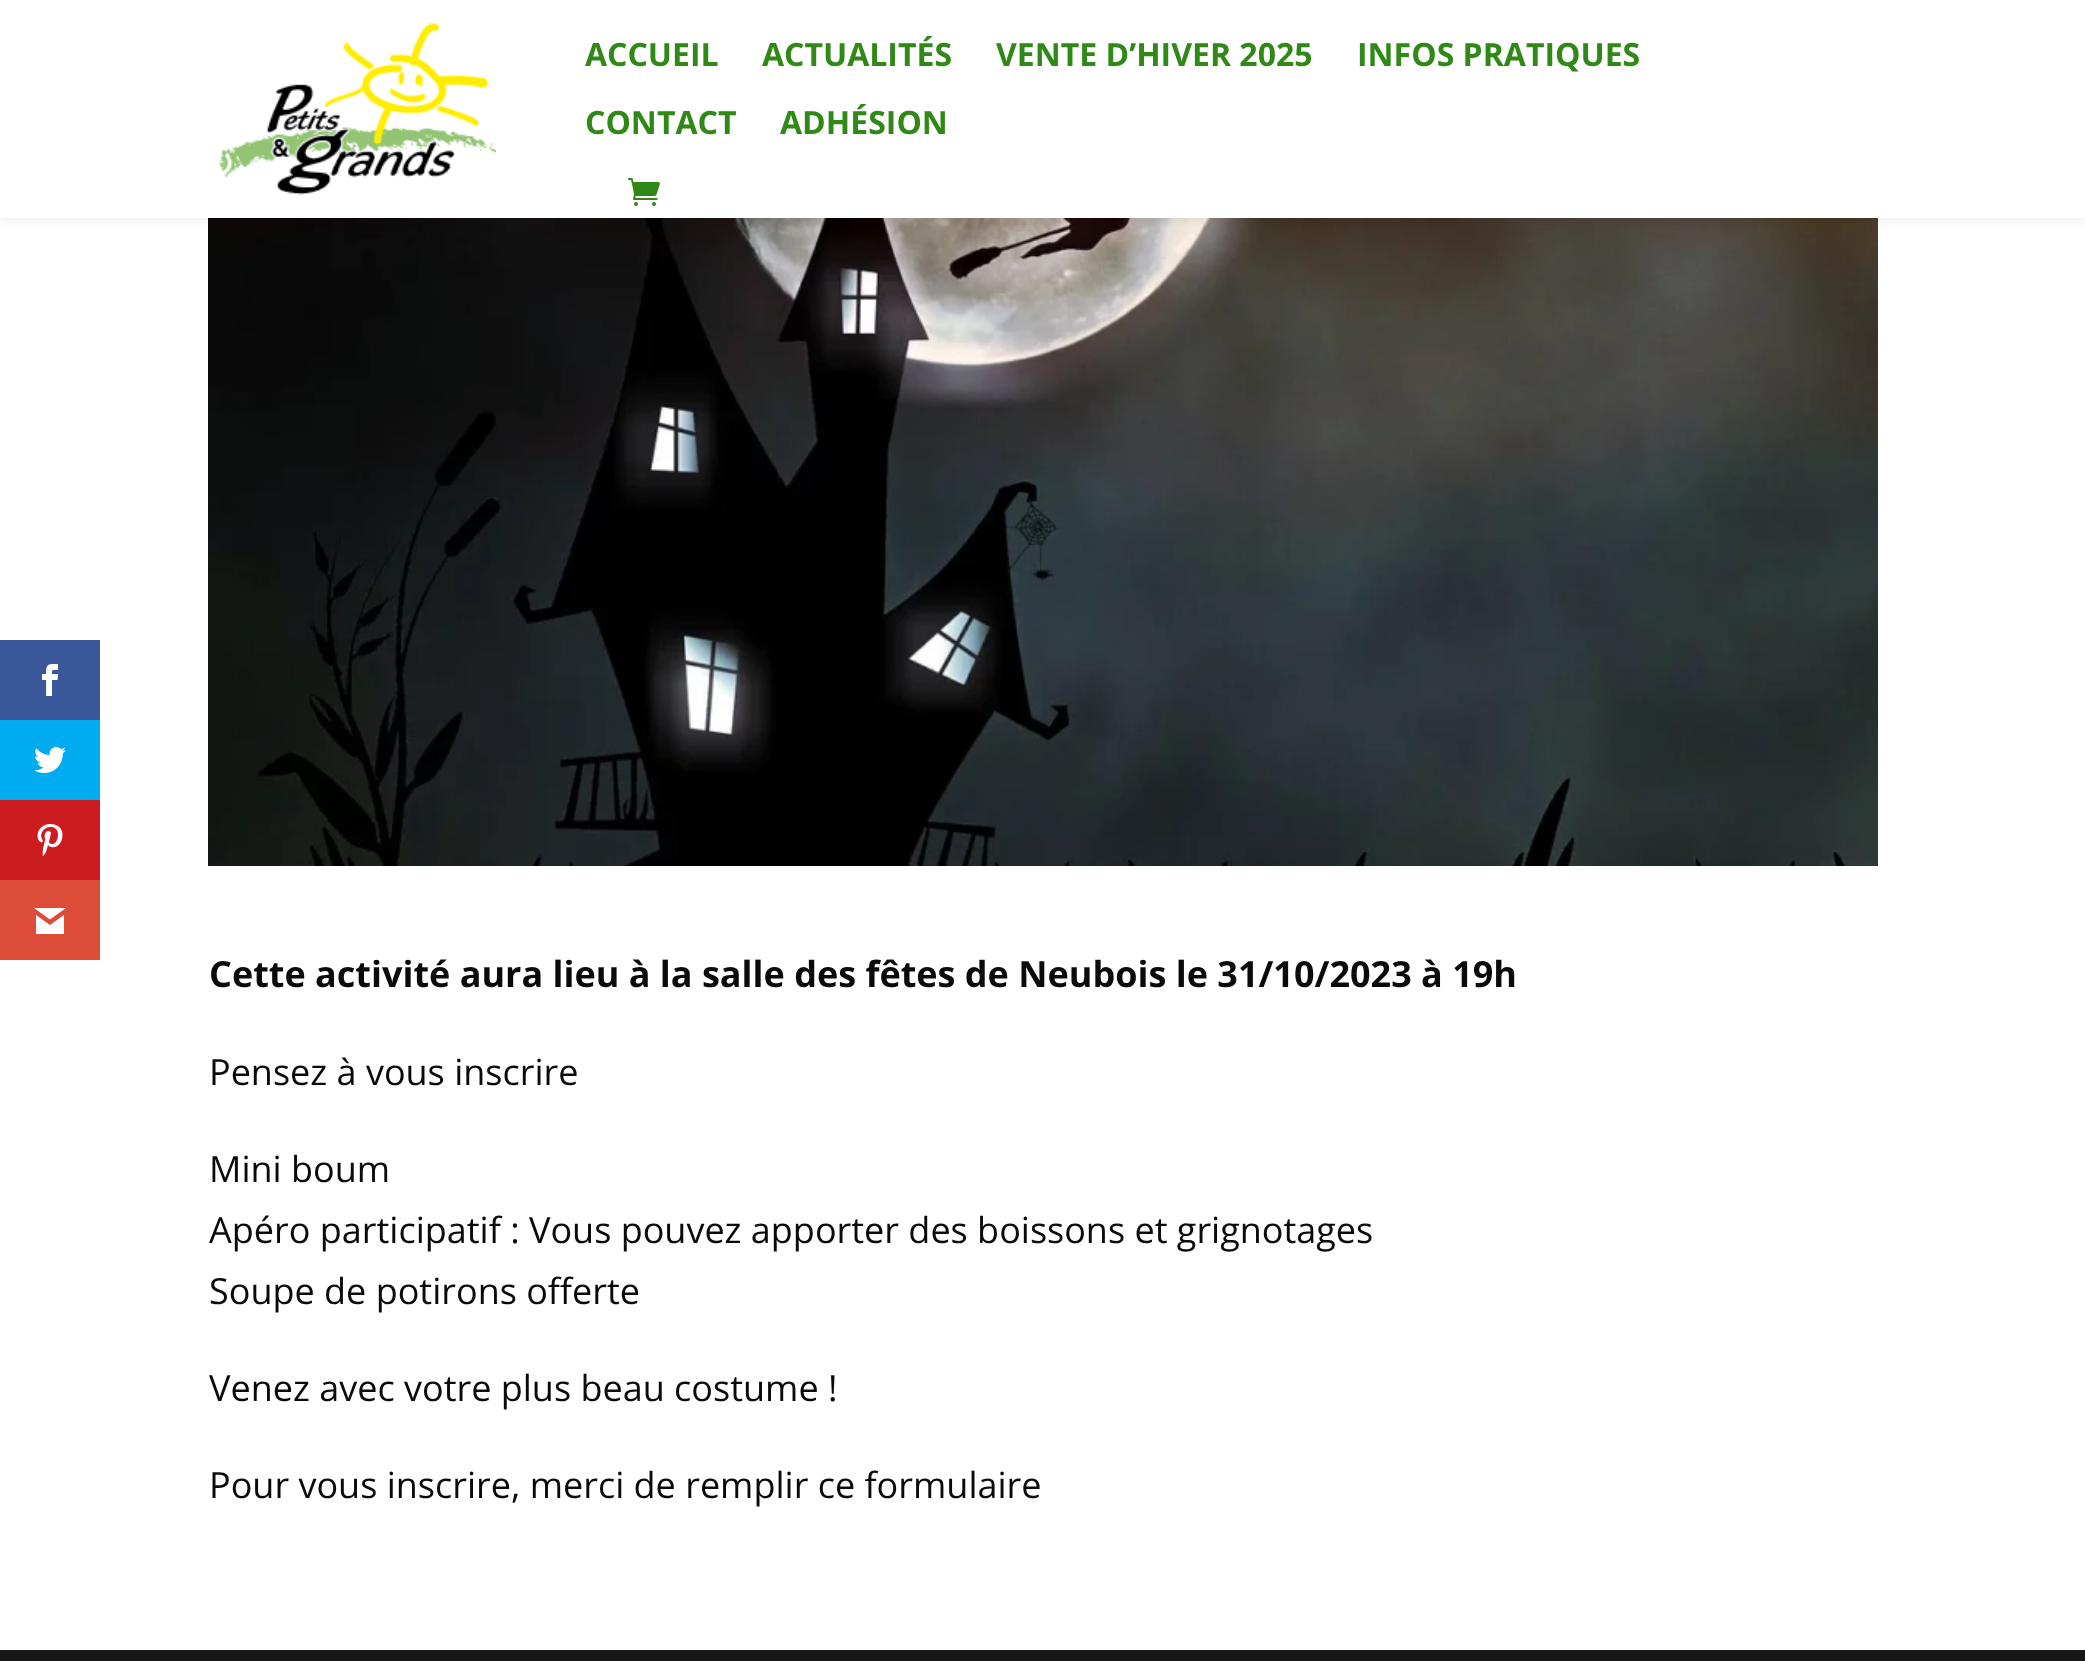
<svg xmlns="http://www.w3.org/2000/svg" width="2085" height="1661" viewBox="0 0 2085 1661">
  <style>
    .t1 { font: bold 32px Open Sans; fill: #308917; }
    .t2 { font: bold 36px Open Sans; fill: #0a0a0a; }
    .t3 { font: 36px Open Sans; fill: #0a0a0a; }
  </style>
  <rect width="100%" height="100%" fill="#fff"/>
  <rect x="0" y="640" width="100" height="80" fill="#3a579a"/>
  <image x="42" y="664" width="17" height="32" href="images/1.png"/>
  <rect x="0" y="720" width="100" height="80" fill="#00abf0"/>
  <image x="34" y="747" width="32" height="26" href="images/2.png"/>
  <rect x="0" y="800" width="100" height="80" fill="#cd1c1f"/>
  <image x="37" y="824" width="26" height="32" href="images/3.png"/>
  <rect x="0" y="880" width="100" height="80" fill="#dd4b39"/>
  <path d="M66 908H34L50 919.5ZM50 925L36 915V934H64V915Z" fill="#fff"/>
  <image x="208" y="218" width="1670" height="648" href="images/6.png"/>
  <rect x="0" y="0" width="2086" height="218" fill="#0000001a" filter="blur(7px)"/>
  <rect x="0" y="0" width="2085" height="218" fill="#fff"/>
  <image x="218" y="23" width="278" height="172" href="images/4.png"/>
  <text x="585" y="66" class="t1">ACCUEIL</text>
  <text x="762" y="66" class="t1">ACTUALITÉS</text>
  <text x="996" y="66" class="t1">VENTE D’HIVER 2025</text>
  <text x="1357" y="66" class="t1">INFOS PRATIQUES</text>
  <text x="585" y="134" class="t1">CONTACT</text>
  <text x="780" y="134" class="t1">ADHÉSION</text>
  <image x="628" y="178" width="32" height="28" href="images/5.png"/>
  <text x="209" y="987" class="t2">Cette activité aura lieu à la salle des fêtes de Neubois le 31/10/2023 à 19h</text>
  <text x="209" y="1085" class="t3">Pensez à vous inscrire</text>
  <text x="209" y="1182" class="t3">Mini boum</text>
  <text x="209" y="1243" class="t3">Apéro participatif : Vous pouvez apporter des boissons et grignotages</text>
  <text x="209" y="1304" class="t3">Soupe de potirons offerte</text>
  <text x="209" y="1401" class="t3">Venez avec votre plus beau costume !</text>
  <text x="209" y="1498" class="t3">Pour vous inscrire, merci de remplir ce formulaire</text>
  <rect x="0" y="1650" width="2085" height="11" fill="#171717"/>
</svg>
